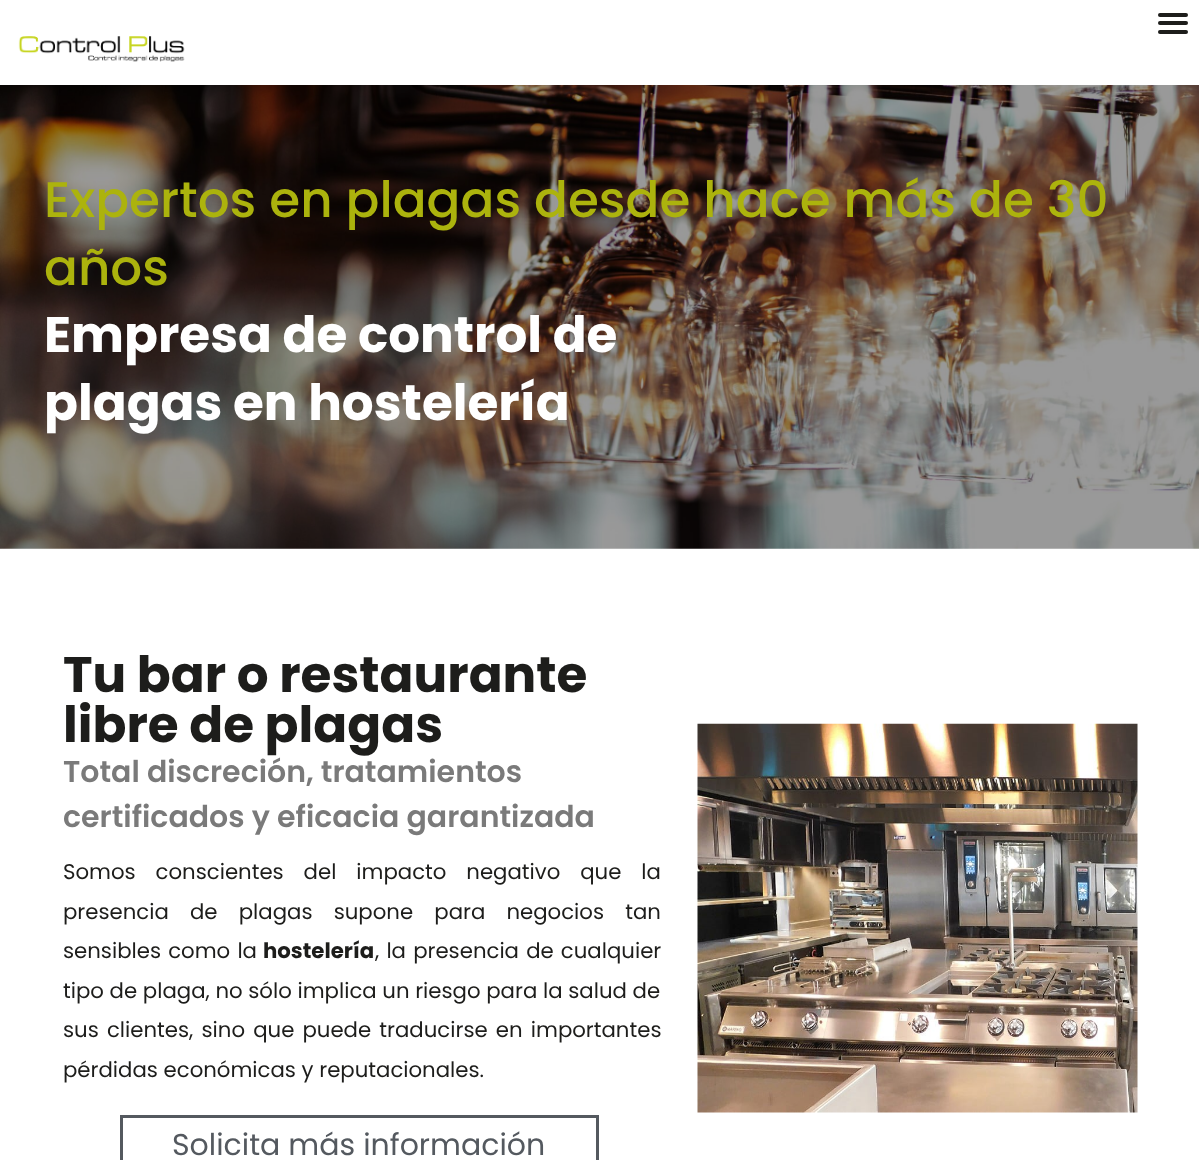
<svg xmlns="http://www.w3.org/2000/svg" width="1199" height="1160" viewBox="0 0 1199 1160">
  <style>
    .t1 { font: 500 50px Poppins; fill: #acb30d; }
    .t2 { font: bold 50px Poppins; fill: #fff; }
    .t3 { font: bold 50px Poppins; fill: #1d1d1b; }
    .t4 { font: 600 30px Poppins; fill: #7a7a7a; }
    .t5 { font: 21.25px Poppins; fill: #1d1d1b; }
    .t6 { font: bold 21.25px Poppins; fill: #1d1d1b; }
    .t7 { font: 30px Poppins; fill: #54595f; }
  </style>
  <rect width="100%" height="100%" fill="#fff"/>
  <rect x="1158" y="13" width="30" height="4" rx="2" fill="#1d1d1b"/>
  <rect x="1158" y="21" width="30" height="4" rx="2" fill="#1d1d1b"/>
  <rect x="1158" y="30" width="30" height="4" rx="2" fill="#1d1d1b"/>
  <image x="18" y="36" width="167" height="26" href="images/1.png"/>
  <image x="0" y="85" width="1199" height="464" href="images/2.png"/>
  <text x="44" y="217" class="t1">Expertos en plagas desde hace más de 30</text>
  <text x="44" y="285" class="t1">años</text>
  <text x="44" y="352" class="t2">Empresa de control de</text>
  <text x="44" y="420" class="t2">plagas en hostelería</text>
  <text x="63" y="692" class="t3">Tu bar o restaurante</text>
  <text x="63" y="742" class="t3">libre de plagas</text>
  <text x="63" y="782" class="t4">Total discreción, tratamientos</text>
  <text x="63" y="827" class="t4">certificados y eficacia garantizada</text>
  <text x="63" y="879" word-spacing="14.25" class="t5">Somos conscientes del impacto negativo que la</text>
  <text x="63" y="919" word-spacing="15.5" class="t5">presencia de plagas supone para negocios tan</text>
  <text x="63" y="958" word-spacing="1.5" class="t5">sensibles como la</text>
  <text x="263" y="958" class="t6">hostelería</text>
  <text x="375" y="958" word-spacing="1.5" class="t5">, la presencia de cualquier</text>
  <text x="63" y="998" class="t5">tipo de plaga, no sólo implica un riesgo para la salud de</text>
  <text x="63" y="1037" word-spacing="2.5" class="t5">sus clientes, sino que puede traducirse en importantes</text>
  <text x="63" y="1077" class="t5">pérdidas económicas y reputacionales.</text>
  <rect x="121.5" y="1116.5" width="476" height="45" fill="none" stroke="#54595f" stroke-width="3"/>
  <text x="172" y="1155" class="t7">Solicita más información</text>
  <image x="697" y="723" width="441" height="390" href="images/3.png"/>
</svg>
